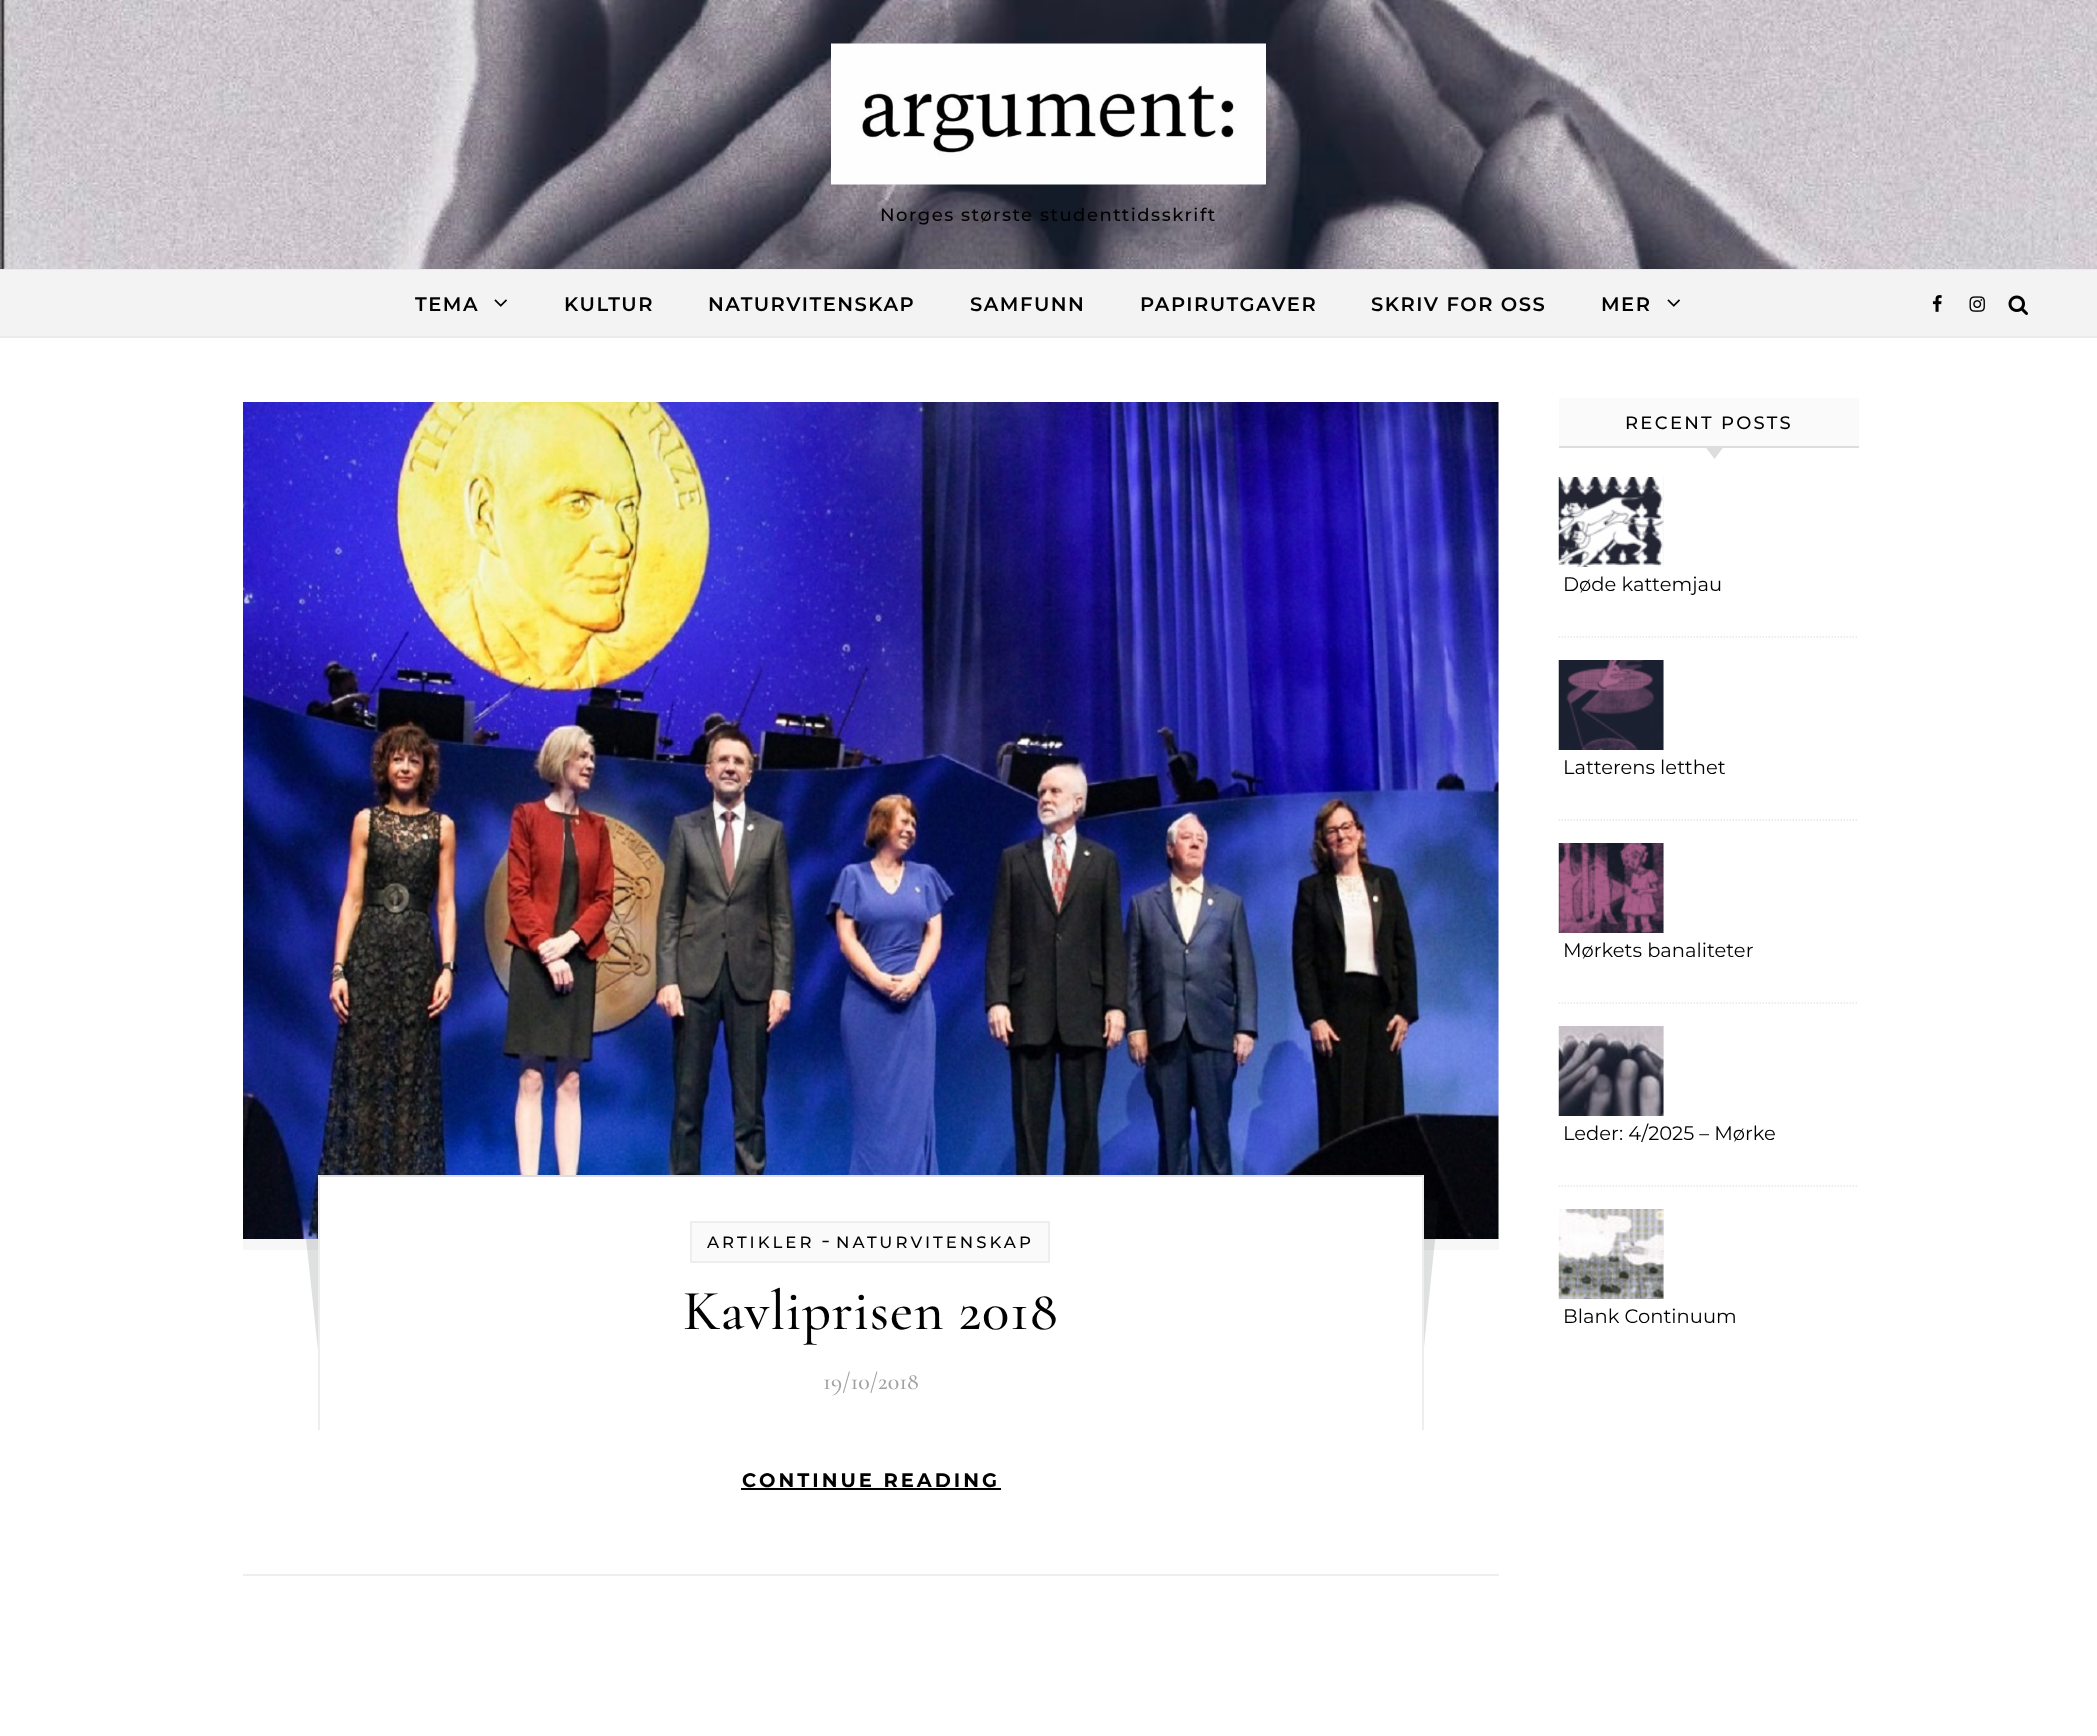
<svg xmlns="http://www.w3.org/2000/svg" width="2097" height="1736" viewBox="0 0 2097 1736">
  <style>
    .t1 { font: 100 18px 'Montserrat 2'; letter-spacing: 1.5px; fill: #010101; }
    .t2 { font: 100 19.5px 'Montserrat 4'; letter-spacing: 1.5px; fill: #010101; }
    .t3 { font: 100 18px 'Montserrat 2'; letter-spacing: 2.25px; fill: #010101; }
    .t4 { font: 100 19.5px Montserrat; fill: #010101; }
    .t5 { font: 100 16.5px 'Montserrat 2'; letter-spacing: 3px; fill: #010101; }
    .t6 { font: 100 24px Montserrat; fill: #010101; }
    .t7 { font: 500 57px Cormorant Garamond; letter-spacing: 0.75px; fill: #010101; }
    .t8 { font: 500 24px Cormorant Garamond; fill: #a1a1a1; }
    .t9 { font: 100 19.5px 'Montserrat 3'; letter-spacing: 3px; fill: #010101; }
  </style>
  <rect width="100%" height="100%" fill="#fff"/>
  <image x="0" y="0" width="2097" height="269" href="images/1.png"/>
  <rect x="0" y="269" width="2097" height="1" fill="#ebebeb"/>
  <image x="831" y="43" width="435" height="142" href="images/2.png"/>
  <text x="880" y="221" class="t1">Norges største studenttidsskrift</text>
  <rect x="0" y="270" width="2097" height="66" fill="#f3f3f3"/>
  <rect x="0" y="336" width="2097" height="2" fill="#ebebeb"/>
  <text x="415" y="311" class="t2">TEMA</text>
  <image x="494" y="299" width="13" height="8" href="images/3.png"/>
  <text x="564" y="311" class="t2">KULTUR</text>
  <text x="708" y="311" class="t2">NATURVITENSKAP</text>
  <text x="970" y="311" class="t2">SAMFUNN</text>
  <text x="1140" y="311" class="t2">PAPIRUTGAVER</text>
  <text x="1371" y="311" class="t2">SKRIV FOR OSS</text>
  <text x="1601" y="311" class="t2">MER</text>
  <image x="1667" y="299" width="13" height="8" href="images/3.png"/>
  <image x="1932" y="295" width="10" height="17" href="images/4.png"/>
  <image x="1969" y="296" width="16" height="16" href="images/5.png"/>
  <image x="2008" y="295" width="20" height="20" href="images/6.png"/>
  <rect x="1559" y="398" width="300" height="48" fill="#fafafa"/>
  <rect x="1559" y="446" width="300" height="2" fill="#ddd"/>
  <text x="1625" y="429" class="t3">RECENT POSTS</text>
  <path d="M1705.5 447H1723.5L1714.5 459Z" fill="#ddd"/>
  <path d="M1558.5 637H1858.5" fill="none" stroke="#e8e8e8" stroke-width="1.5" stroke-dasharray="1.5 1.5"/>
  <rect x="1663" y="477" width="1" height="90" fill="#f2f2f2"/>
  <image x="1558" y="477" width="106" height="90" href="images/7.png"/>
  <text x="1563" y="591" class="t4">Døde kattemjau</text>
  <path d="M1558.5 820H1858.5" fill="none" stroke="#e8e8e8" stroke-width="1.5" stroke-dasharray="1.5 1.5"/>
  <rect x="1663" y="660" width="1" height="90" fill="#f2f2f2"/>
  <image x="1558" y="660" width="106" height="90" href="images/8.png"/>
  <text x="1563" y="774" class="t4">Latterens letthet</text>
  <path d="M1558.5 1003H1858.5" fill="none" stroke="#e8e8e8" stroke-width="1.5" stroke-dasharray="1.5 1.5"/>
  <rect x="1663" y="843" width="1" height="90" fill="#f2f2f2"/>
  <image x="1558" y="843" width="106" height="90" href="images/9.png"/>
  <text x="1563" y="957" class="t4">Mørkets banaliteter</text>
  <path d="M1558.5 1186H1858.5" fill="none" stroke="#e8e8e8" stroke-width="1.5" stroke-dasharray="1.5 1.5"/>
  <rect x="1663" y="1026" width="1" height="90" fill="#f2f2f2"/>
  <image x="1558" y="1026" width="106" height="90" href="images/10.png"/>
  <text x="1563" y="1140" class="t4">Leder: 4/2025 – Mørke</text>
  <rect x="1663" y="1209" width="1" height="90" fill="#f2f2f2"/>
  <image x="1558" y="1209" width="106" height="90" href="images/11.png"/>
  <text x="1563" y="1323" class="t4">Blank Continuum</text>
  <rect x="243" y="1574" width="1256" height="2" fill="#eee"/>
  <rect x="243" y="402" width="1256" height="848" fill="#f7f7f7"/>
  <image x="243" y="402" width="1256" height="837" href="images/12.png"/>
  <path d="M302 1201L332 1198L356 1422L326 1425Z" fill="#272c3126"/>
  <path d="M1409 1198L1439 1201L1416 1425L1386 1422Z" fill="#272c3126"/>
  <rect x="320" y="1177" width="1102" height="248" fill="#fff"/>
  <rect x="318" y="1175" width="1106" height="2" fill="#ddd"/>
  <rect x="1422" y="1175" width="2" height="255" fill="#eee"/>
  <rect x="318" y="1175" width="2" height="255" fill="#eee"/>
  <rect x="691" y="1222" width="358" height="40" fill="#fafafa" stroke="#eee" stroke-width="2"/>
  <text x="707" y="1248" class="t5">ARTIKLER</text>
  <text x="821" y="1248" class="t6">-</text>
  <text x="836" y="1248" class="t5">NATURVITENSKAP</text>
  <text x="683" y="1329" class="t7">Kavliprisen 2018</text>
  <text x="823" y="1389" class="t8">19/10/2018</text>
  <text x="742" y="1487" class="t9">CONTINUE READING</text>
  <rect x="741" y="1488" width="260" height="2" fill="#000"/>
</svg>
